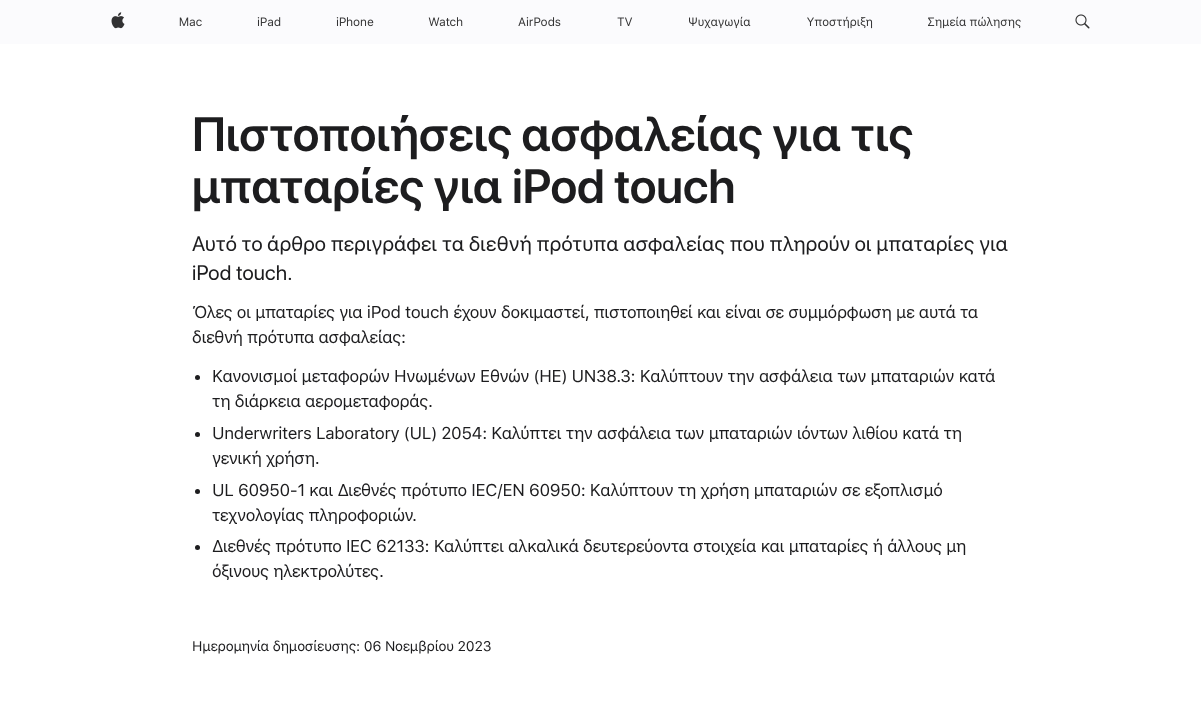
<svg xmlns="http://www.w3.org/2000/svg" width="1201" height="701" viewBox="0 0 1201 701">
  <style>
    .t1 { font: 600 48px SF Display; letter-spacing: -0.15px; fill: #1d1d1f; }
    .t2 { font: 21px SF Display; letter-spacing: 0.23px; fill: #1d1d1f; }
    .t3 { font: 17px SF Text; letter-spacing: -0.37px; fill: #1d1d1f; }
    .t4 { font: 14px SF Text; letter-spacing: -0.2px; fill: #1d1d1f; }
  </style>
  <rect width="100%" height="100%" fill="#fff"/>
  <rect x="0" y="0" width="1201" height="44" fill="#fbfbfd"/>
  <image x="111" y="12" width="14" height="17" href="images/1.png"/>
  <image x="179" y="17" width="23" height="10" href="images/2.png"/>
  <image x="257" y="17" width="24" height="10" href="images/3.png"/>
  <image x="336" y="17" width="38" height="10" href="images/4.png"/>
  <image x="428" y="17" width="35" height="10" href="images/5.png"/>
  <image x="518" y="17" width="43" height="10" href="images/6.png"/>
  <image x="617" y="17" width="16" height="9" href="images/7.png"/>
  <image x="689" y="16" width="62" height="13" href="images/8.png"/>
  <image x="807" y="16" width="66" height="13" href="images/9.png"/>
  <image x="928" y="16" width="93" height="13" href="images/10.png"/>
  <image x="1075" y="14" width="15" height="15" href="images/11.png"/>
  <text x="192" y="151" class="t1">Πιστοποιήσεις ασφαλείας για τις</text>
  <text x="192" y="203" class="t1">μπαταρίες για iPod touch</text>
  <text x="192" y="251" class="t2">Αυτό το άρθρο περιγράφει τα διεθνή πρότυπα ασφαλείας που πληρούν οι μπαταρίες για</text>
  <text x="192" y="280" class="t2">iPod touch.</text>
  <text x="192" y="318" class="t3">Όλες οι μπαταρίες για iPod touch έχουν δοκιμαστεί, πιστοποιηθεί και είναι σε συμμόρφωση με αυτά τα</text>
  <text x="192" y="343" class="t3">διεθνή πρότυπα ασφαλείας:</text>
  <circle cx="197.5" cy="377.5" r="2.5" fill="#1d1d1f"/>
  <text x="212" y="382" class="t3">Κανονισμοί μεταφορών Ηνωμένων Εθνών (ΗΕ) UN38.3: Καλύπτουν την ασφάλεια των μπαταριών κατά</text>
  <text x="212" y="407" class="t3">τη διάρκεια αερομεταφοράς.</text>
  <circle cx="197.5" cy="434.5" r="2.5" fill="#1d1d1f"/>
  <text x="212" y="439" class="t3">Underwriters Laboratory (UL) 2054: Καλύπτει την ασφάλεια των μπαταριών ιόντων λιθίου κατά τη</text>
  <text x="212" y="464" class="t3">γενική χρήση.</text>
  <circle cx="197.5" cy="491.5" r="2.5" fill="#1d1d1f"/>
  <text x="212" y="496" class="t3">UL 60950-1 και Διεθνές πρότυπο IEC/EN 60950: Καλύπτουν τη χρήση μπαταριών σε εξοπλισμό</text>
  <text x="212" y="521" class="t3">τεχνολογίας πληροφοριών.</text>
  <circle cx="197.5" cy="547.5" r="2.5" fill="#1d1d1f"/>
  <text x="212" y="552" class="t3">Διεθνές πρότυπο IEC 62133: Καλύπτει αλκαλικά δευτερεύοντα στοιχεία και μπαταρίες ή άλλους μη</text>
  <text x="212" y="577" class="t3">όξινους ηλεκτρολύτες.</text>
  <text x="192" y="651" class="t4">Ημερομηνία δημοσίευσης: 06 Νοεμβρίου 2023</text>
</svg>
